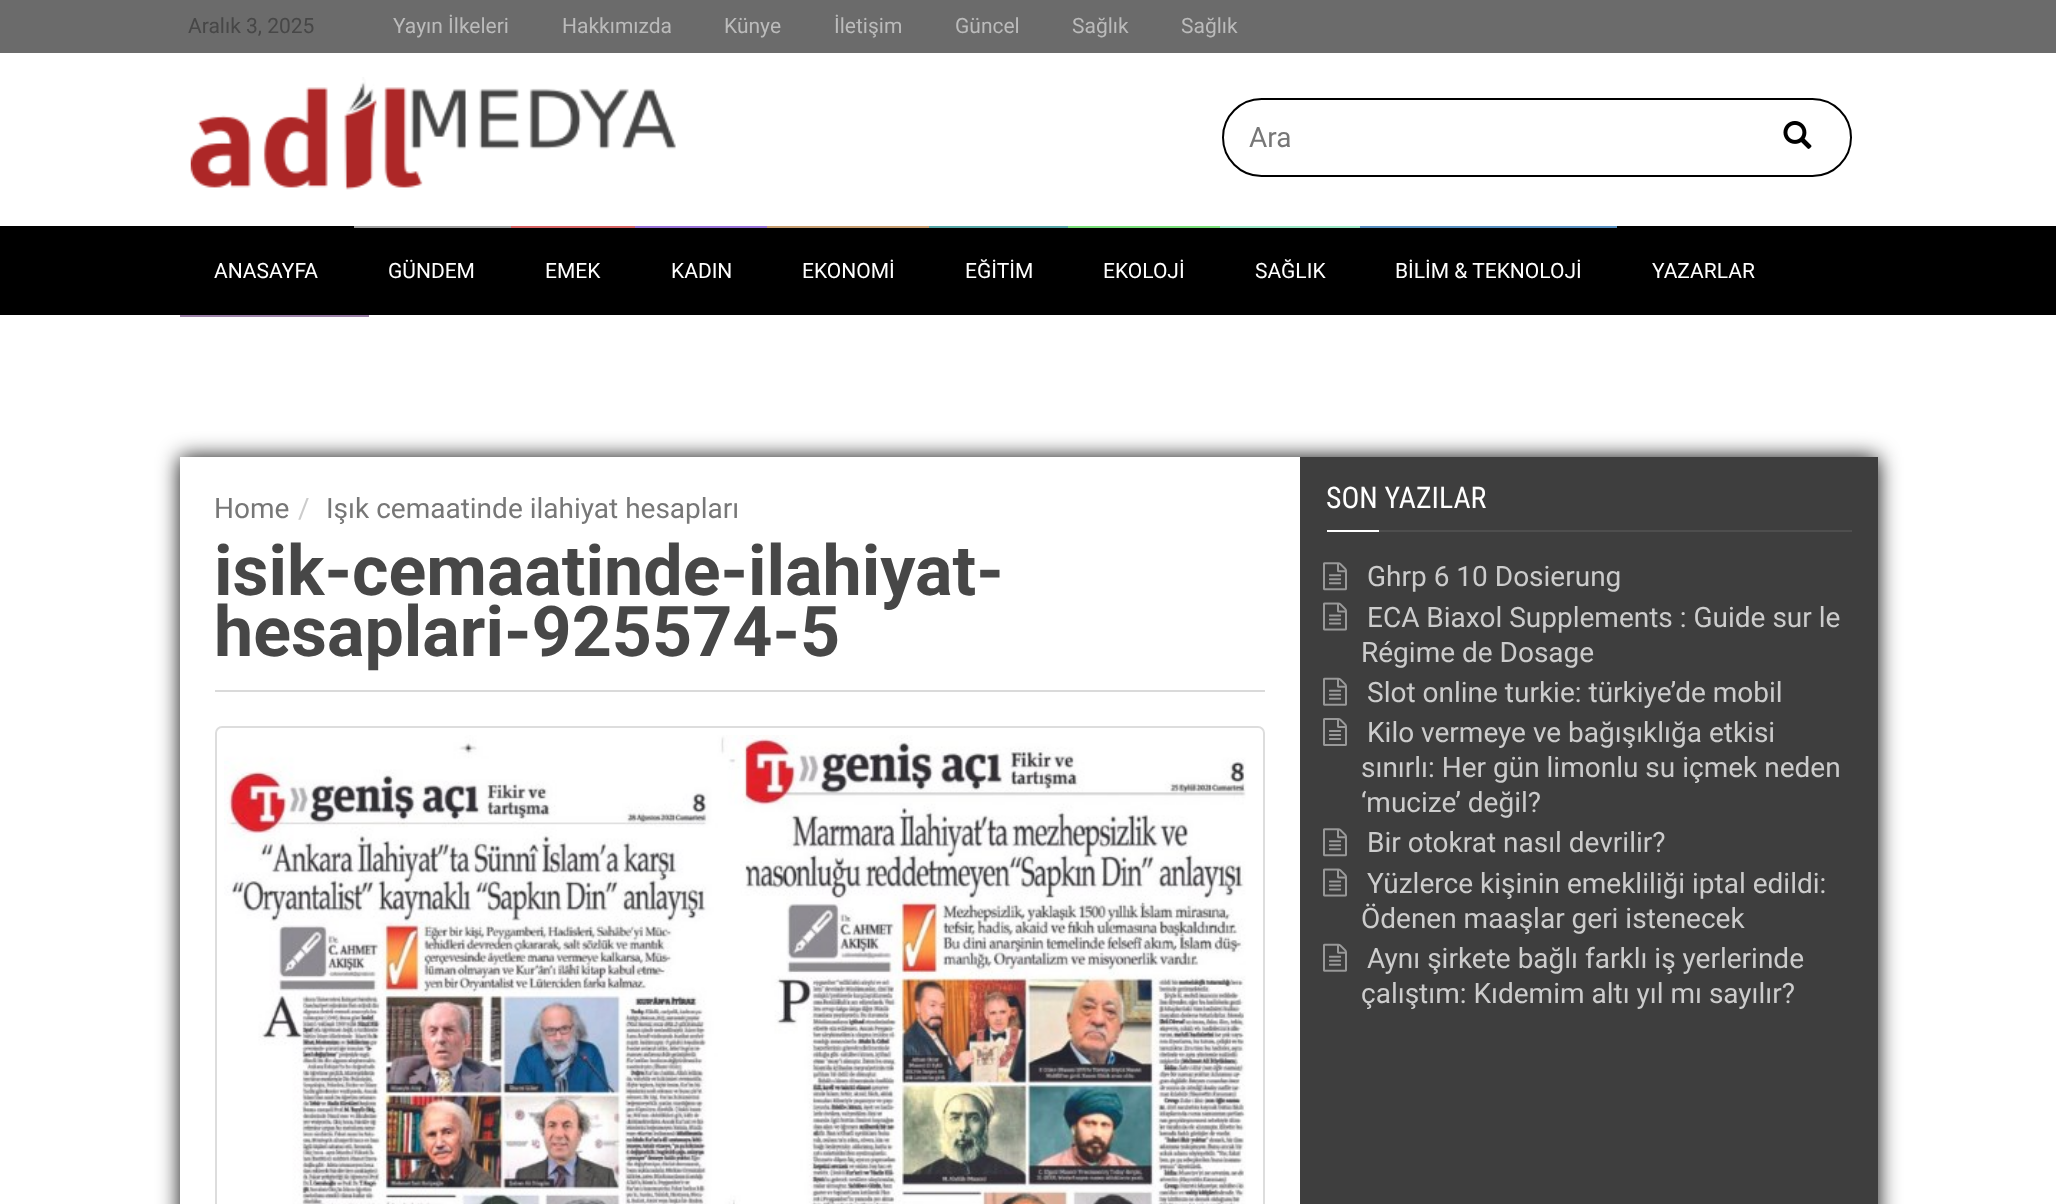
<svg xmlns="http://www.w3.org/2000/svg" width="2056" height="1204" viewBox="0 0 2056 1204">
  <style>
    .t1 { font: 21px Roboto; fill: #474747; }
    .t2 { font: 21px Roboto; fill: #bbb; }
    .t3 { font: 28px Roboto; fill: #777; }
    .t4 { font: 21px Roboto; fill: #fff; }
    .t5 { font: 28px Roboto; fill: #ccc; }
    .t6 { font: bold 70px Roboto; fill: #474747; }
    .t7 { font: 29.75px Roboto Condensed; fill: #fff; }
  </style>
  <rect width="100%" height="100%" fill="#fff"/>
  <rect x="0" y="0" width="2056" height="53" fill="#6b6b6b"/>
  <text x="188" y="33" class="t1">Aralık 3, 2025</text>
  <text x="393" y="33" class="t2">Yayın İlkeleri</text>
  <text x="562" y="33" class="t2">Hakkımızda</text>
  <text x="724" y="33" class="t2">Künye</text>
  <text x="834" y="33" class="t2">İletişim</text>
  <text x="955" y="33" class="t2">Güncel</text>
  <text x="1072" y="33" class="t2">Sağlık</text>
  <text x="1181" y="33" class="t2">Sağlık</text>
  <rect x="0" y="226" width="2056" height="89" fill="#000"/>
  <image x="190" y="77" width="486" height="113" href="images/1.png"/>
  <rect x="1223" y="99" width="628" height="77" rx="38.5" fill="none" stroke="#000" stroke-width="2"/>
  <text x="1249" y="147" class="t3">Ara</text>
  <image x="1783" y="121" width="29" height="28" href="images/2.png"/>
  <text x="214" y="278" class="t4">ANASAYFA</text>
  <rect x="354" y="226" width="157" height="2" fill="#9e9e9e"/>
  <text x="388" y="278" class="t4">GÜNDEM</text>
  <rect x="511" y="226" width="124" height="2" fill="#d66262"/>
  <text x="545" y="278" class="t4">EMEK</text>
  <rect x="635" y="226" width="132" height="2" fill="#966fd6"/>
  <text x="671" y="278" class="t4">KADIN</text>
  <rect x="767" y="226" width="162" height="2" fill="#c69c6e"/>
  <text x="802" y="278" class="t4">EKONOMİ</text>
  <rect x="929" y="226" width="139" height="2" fill="#54a5a5"/>
  <text x="965" y="278" class="t4">EĞİTİM</text>
  <rect x="1068" y="226" width="152" height="2" fill="#7d7"/>
  <text x="1103" y="278" class="t4">EKOLOJİ</text>
  <rect x="1220" y="226" width="140" height="2" fill="#97e5c3"/>
  <text x="1255" y="278" class="t4">SAĞLIK</text>
  <rect x="1360" y="226" width="257" height="2" fill="#568ebf"/>
  <text x="1395" y="278" class="t4">BİLİM &amp; TEKNOLOJİ</text>
  <text x="1652" y="278" class="t4">YAZARLAR</text>
  <rect x="180" y="315" width="189" height="2" fill="#9c81a8"/>
  <rect x="180" y="457" width="1698" height="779" fill="#0a0a0a" filter="blur(10.5px)"/>
  <rect x="180" y="457" width="1120" height="747" fill="#fff"/>
  <rect x="215" y="690" width="1050" height="2" fill="#dadada"/>
  <text x="214" y="518" class="t3">Home</text>
  <text x="298" y="518" class="t5">/</text>
  <text x="326" y="518" class="t3">Işık cemaatinde ilahiyat hesapları</text>
  <text x="214" y="595" class="t6">isik-cemaatinde-ilahiyat-</text>
  <text x="214" y="656" class="t6">hesaplari-925574-5</text>
  <rect x="216" y="727" width="1048" height="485" rx="6" fill="none" stroke="#ddd" stroke-width="2"/>
  <image x="224" y="735" width="1022" height="469" href="images/3.png"/>
  <rect x="1300" y="457" width="578" height="747" fill="#3e3e3e"/>
  <rect x="1379" y="530" width="473" height="2" fill="#4e4e4e"/>
  <text x="1326" y="508" class="t7">SON YAZILAR</text>
  <rect x="1327" y="530" width="52" height="2" fill="#fff"/>
  <image x="1323" y="562" width="24" height="29" href="images/4.png"/>
  <text x="1367" y="586" class="t5">Ghrp 6 10 Dosierung</text>
  <image x="1323" y="602" width="24" height="29" href="images/5.png"/>
  <text x="1367" y="627" class="t5">ECA Biaxol Supplements : Guide sur le</text>
  <text x="1361" y="662" class="t5">Régime de Dosage</text>
  <image x="1323" y="677" width="24" height="29" href="images/6.png"/>
  <text x="1367" y="702" class="t5">Slot online turkie: türkiye’de mobil</text>
  <image x="1323" y="718" width="24" height="28" href="images/7.png"/>
  <text x="1367" y="742" class="t5">Kilo vermeye ve bağışıklığa etkisi</text>
  <text x="1361" y="777" class="t5">sınırlı: Her gün limonlu su içmek neden</text>
  <text x="1361" y="812" class="t5">‘mucize’ değil?</text>
  <image x="1323" y="828" width="24" height="29" href="images/4.png"/>
  <text x="1367" y="852" class="t5">Bir otokrat nasıl devrilir?</text>
  <image x="1323" y="868" width="24" height="29" href="images/5.png"/>
  <text x="1367" y="893" class="t5">Yüzlerce kişinin emekliliği iptal edildi:</text>
  <text x="1361" y="928" class="t5">Ödenen maaşlar geri istenecek</text>
  <image x="1323" y="943" width="24" height="29" href="images/6.png"/>
  <text x="1367" y="968" class="t5">Aynı şirkete bağlı farklı iş yerlerinde</text>
  <text x="1361" y="1003" class="t5">çalıştım: Kıdemim altı yıl mı sayılır?</text>
</svg>
